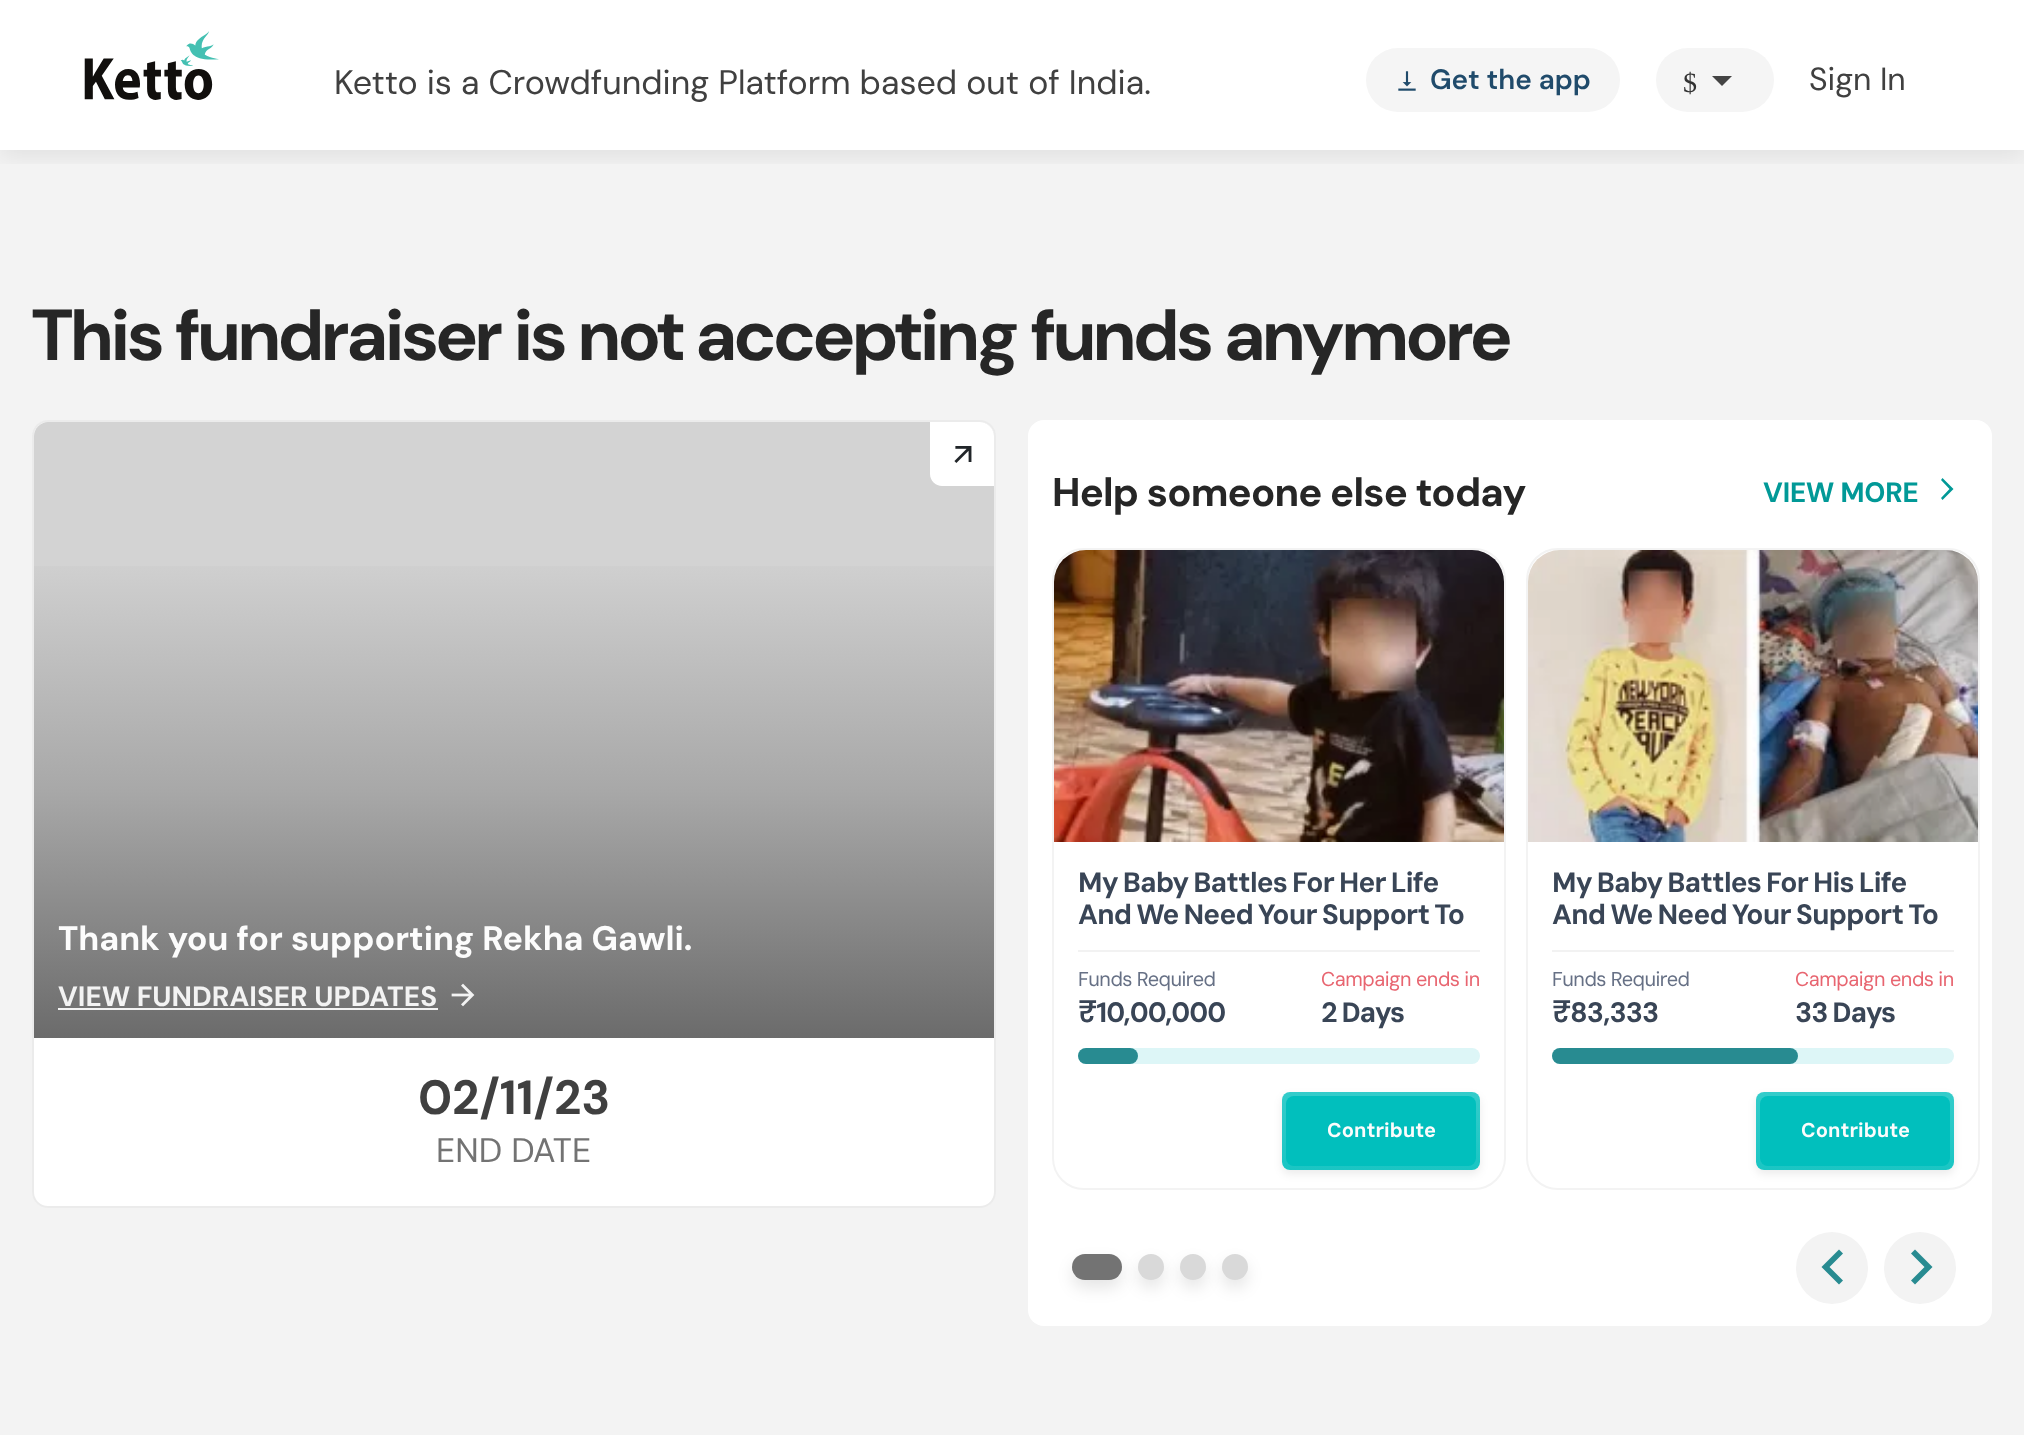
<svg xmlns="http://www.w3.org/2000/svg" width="2024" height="1435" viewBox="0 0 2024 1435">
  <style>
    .t1 { font: 34px DM Sans; fill: #404040; }
    .t2 { font: 600 28px 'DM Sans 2'; fill: #204b6b; }
    .t3 { font: 28px Liberation Serif; fill: #333; }
    .t4 { font: 32px 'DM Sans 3'; fill: #404040; }
    .t5 { font: bold 72px DM Sans; letter-spacing: -1.45px; fill: #262626; }
    .t6 { font: bold 34px 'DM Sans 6'; fill: #fcfcfc; }
    .t7 { font: bold 28px 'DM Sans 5'; fill: #f3f3f3; }
    .t8 { font: bold 48px 'DM Sans 2'; fill: #404040; }
    .t9 { font: 34px DM Sans; fill: #737373; }
    .t10 { font: bold 40px 'DM Sans 3'; letter-spacing: -0.8px; fill: #262626; }
    .t11 { font: bold 28px 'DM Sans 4'; letter-spacing: -0.5px; fill: #019997; }
    .t12 { font: bold 28px 'DM Sans 4'; letter-spacing: -0.8px; fill: #394556; }
    .t13 { font: 20px 'DM Sans 2'; letter-spacing: -0.5px; fill: #667085; }
    .t14 { font: 600 31px DM Sans; letter-spacing: -1px; fill: #394556; }
    .t15 { font: bold 28px 'DM Sans 4'; letter-spacing: -1px; fill: #394556; }
    .t16 { font: 20px 'DM Sans 2'; letter-spacing: -0.5px; fill: #e86570; }
    .t17 { font: bold 20px 'DM Sans 4'; fill: #fcfcfc; }
  </style>
  <defs>
    <clipPath id="clip1"><rect x="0" y="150" width="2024" height="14"/></clipPath>
    <linearGradient id="g1" gradientUnits="userSpaceOnUse" x1="514" y1="1038" x2="514" y2="422"><stop offset="0" stop-color="#262626" stop-opacity="0.6"/><stop offset="0.4" stop-color="#262626" stop-opacity="0.25"/><stop offset="0.8" stop-color="#262626" stop-opacity="0"/></linearGradient>
    <clipPath id="clip2"><path d="M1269 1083H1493V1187H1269ZM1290 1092H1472C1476.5 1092 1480 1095.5 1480 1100V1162C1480 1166.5 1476.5 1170 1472 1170H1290C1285.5 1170 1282 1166.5 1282 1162V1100C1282 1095.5 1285.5 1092 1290 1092Z" clip-rule="evenodd"/></clipPath>
    <linearGradient id="g2" gradientUnits="userSpaceOnUse" x1="1381" y1="1170" x2="1381" y2="1092"><stop offset="0" stop-color="#01bfbd" stop-opacity="0.9"/><stop offset="1" stop-color="#01bfbd" stop-opacity="0.8"/></linearGradient>
    <clipPath id="clip3"><path d="M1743 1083H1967V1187H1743ZM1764 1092H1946C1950.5 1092 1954 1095.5 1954 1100V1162C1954 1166.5 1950.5 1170 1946 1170H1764C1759.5 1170 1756 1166.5 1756 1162V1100C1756 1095.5 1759.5 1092 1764 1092Z" clip-rule="evenodd"/></clipPath>
    <linearGradient id="g3" gradientUnits="userSpaceOnUse" x1="1855" y1="1170" x2="1855" y2="1092"><stop offset="0" stop-color="#01bfbd" stop-opacity="0.9"/><stop offset="1" stop-color="#01bfbd" stop-opacity="0.8"/></linearGradient>
  </defs>
  <rect width="100%" height="100%" fill="#fff"/>
  <rect x="0" y="150" width="2024" height="1285" fill="#f3f3f3"/>
  <g clip-path="url(#clip1)">
    <rect x="0" y="6" width="2024" height="150" fill="#00000014" filter="blur(12px)"/>
  </g>
  <image x="84" y="31" width="135" height="69" href="images/1.png"/>
  <text x="334" y="94" class="t1">Ketto is a Crowdfunding Platform based out of India.</text>
  <rect x="1366" y="48" width="254" height="64" rx="32" fill="#f5f5f5"/>
  <image x="1398" y="71" width="18" height="20" href="images/2.png"/>
  <text x="1430" y="89" class="t2">Get the app</text>
  <rect x="1656" y="48" width="118" height="64" rx="32" fill="#f5f5f5"/>
  <text x="1683" y="92" class="t3">$</text>
  <path d="M1712 76H1732L1722 86Z" fill="#444"/>
  <text x="1809" y="90" class="t4">Sign In</text>
  <text x="32" y="360" class="t5">This fundraiser is not accepting funds anymore</text>
  <rect x="32" y="420" width="964" height="788" rx="16" fill="#fff"/>
  <rect x="33" y="421" width="962" height="786" rx="15" fill="none" stroke="#cccccc66" stroke-width="2"/>
  <path d="M48 422H980C987.5 422 994 428.5 994 436V1038H34V436C34 428.5 40.5 422 48 422Z" fill="#d3d3d3"/>
  <path d="M930 422H980C987.5 422 994 428.5 994 436V486H942C935.5 486 930 480.5 930 474Z" fill="#fff"/>
  <image x="954" y="446" width="18" height="17" href="images/3.png"/>
  <rect x="34" y="566" width="960" height="472" fill="url(#g1)"/>
  <text x="58" y="950" class="t6">Thank you for supporting Rekha Gawli.</text>
  <text x="58" y="1006" class="t7">VIEW FUNDRAISER UPDATES</text>
  <rect x="58" y="1008" width="380" height="2" fill="#f3f3f3"/>
  <image x="451" y="983" width="24" height="24" href="images/4.png"/>
  <text x="418" y="1114" class="t8">02/11/23</text>
  <text x="436" y="1162" class="t9">END DATE</text>
  <rect x="1028" y="420" width="964" height="906" rx="16" fill="#fff"/>
  <text x="1052" y="506" class="t10">Help someone else today</text>
  <text x="1763" y="502" class="t11">VIEW MORE</text>
  <path d="M1941 498L1942.5 500L1953.5 489L1942.5 478L1941 480L1949.5 489Z" fill="#019997"/>
  <rect x="1053" y="549" width="452" height="640" rx="31" fill="none" stroke="#f3f3f3" stroke-width="2"/>
  <image x="1054" y="550" width="450" height="292" href="images/5.png"/>
  <text x="1078" y="892" word-spacing="-1" class="t12">My Baby Battles For Her Life</text>
  <text x="1078" y="924" word-spacing="-1" class="t12">And We Need Your Support To</text>
  <rect x="1078" y="950" width="402" height="2" fill="#f2f2f2"/>
  <text x="1078" y="986" class="t13">Funds Required</text>
  <text x="1078" y="1022" class="t14">₹</text>
  <text x="1096" y="1022" class="t15">10,00,000</text>
  <text x="1321" y="986" class="t16">Campaign ends in</text>
  <text x="1321" y="1022" word-spacing="-1" class="t15">2 Days</text>
  <rect x="1078" y="1048" width="402" height="16" rx="8" fill="#ddf6f7"/>
  <rect x="1078" y="1048" width="60" height="16" rx="8" fill="#288b91"/>
  <g clip-path="url(#clip2)">
    <rect x="1282" y="1096" width="198" height="78" rx="8" fill="#00000014" filter="blur(4px)"/>
  </g>
  <rect x="1282" y="1092" width="198" height="78" rx="8" fill="url(#g2)"/>
  <rect x="1286" y="1096" width="190" height="70" rx="8" fill="#01bfbd"/>
  <text x="1327" y="1137" class="t17">Contribute</text>
  <rect x="1527" y="549" width="452" height="640" rx="31" fill="none" stroke="#f3f3f3" stroke-width="2"/>
  <image x="1528" y="550" width="450" height="292" href="images/6.png"/>
  <text x="1552" y="892" word-spacing="-1" class="t12">My Baby Battles For His Life</text>
  <text x="1552" y="924" word-spacing="-1" class="t12">And We Need Your Support To</text>
  <rect x="1552" y="950" width="402" height="2" fill="#f2f2f2"/>
  <text x="1552" y="986" class="t13">Funds Required</text>
  <text x="1552" y="1022" class="t14">₹</text>
  <text x="1570" y="1022" class="t15">83,333</text>
  <text x="1795" y="986" class="t16">Campaign ends in</text>
  <text x="1795" y="1022" word-spacing="-1" class="t15">33 Days</text>
  <rect x="1552" y="1048" width="402" height="16" rx="8" fill="#ddf6f7"/>
  <rect x="1552" y="1048" width="246" height="16" rx="8" fill="#288b91"/>
  <g clip-path="url(#clip3)">
    <rect x="1756" y="1096" width="198" height="78" rx="8" fill="#00000014" filter="blur(4px)"/>
  </g>
  <rect x="1756" y="1092" width="198" height="78" rx="8" fill="url(#g3)"/>
  <rect x="1760" y="1096" width="190" height="70" rx="8" fill="#01bfbd"/>
  <text x="1801" y="1137" class="t17">Contribute</text>
  <rect x="1072" y="1262" width="50" height="26" rx="13" fill="#0000001a" filter="blur(8px)"/>
  <rect x="1072" y="1254" width="50" height="26" rx="13" fill="#737373"/>
  <rect x="1138" y="1262" width="26" height="26" rx="13" fill="#0000001a" filter="blur(8px)"/>
  <circle cx="1151" cy="1267" r="13" fill="#d9d9d9"/>
  <rect x="1180" y="1262" width="26" height="26" rx="13" fill="#0000001a" filter="blur(8px)"/>
  <circle cx="1193" cy="1267" r="13" fill="#d9d9d9"/>
  <rect x="1222" y="1262" width="26" height="26" rx="13" fill="#0000001a" filter="blur(8px)"/>
  <circle cx="1235" cy="1267" r="13" fill="#d9d9d9"/>
  <circle cx="1832" cy="1268" r="36" fill="#f3f3f3"/>
  <path d="M1843 1253.5L1829.5 1267L1843 1280.5L1839 1284.5L1821.5 1267L1839 1249.5Z" fill="#288b91"/>
  <circle cx="1920" cy="1268" r="36" fill="#f3f3f3"/>
  <path d="M1915 1249.5L1932.5 1267L1915 1284.5L1911 1280.5L1924.5 1267L1911 1253.5Z" fill="#288b91"/>
</svg>
